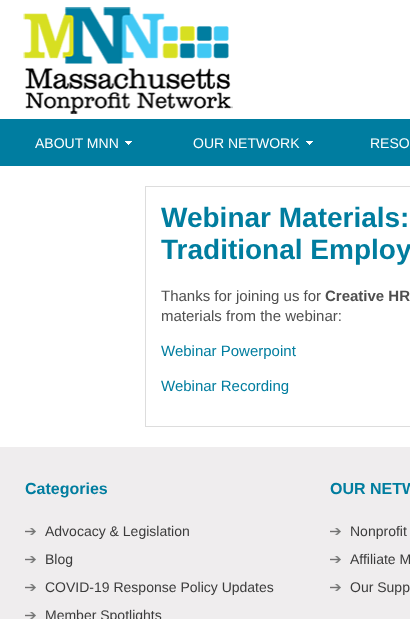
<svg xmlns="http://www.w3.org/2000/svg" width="410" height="619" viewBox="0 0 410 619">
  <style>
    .t1 { font: 14px Liberation Sans; fill: #fff; }
    .t2 { font: bold 28px Liberation Sans; fill: #007d9f; }
    .t3 { font: 15px Liberation Sans; fill: #4f4f4f; }
    .t4 { font: bold 15px Liberation Sans; fill: #4f4f4f; }
    .t5 { font: 15px Liberation Sans; fill: #007d9f; }
    .t6 { font: bold 16px Liberation Sans; fill: #007d9f; }
    .t7 { font: 14px Liberation Sans; fill: #3b3b3b; }
  </style>
  <rect width="100%" height="100%" fill="#fff"/>
  <image x="23" y="7" width="210" height="107" href="images/1.png"/>
  <rect x="0" y="119" width="410" height="47" fill="#007da0"/>
  <text x="35" y="148" class="t1">ABOUT MNN</text>
  <image x="125" y="141" width="7" height="4" href="images/2.png"/>
  <text x="193" y="148" class="t1">OUR NETWORK</text>
  <image x="306" y="141" width="7" height="4" href="images/2.png"/>
  <text x="370" y="148" class="t1">RESO</text>
  <rect x="145.5" y="186.5" width="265" height="240" fill="none" stroke="#ddd"/>
  <text x="161" y="227" class="t2">Webinar Materials:</text>
  <text x="161" y="259" class="t2">Traditional Employ</text>
  <text x="161" y="301" class="t3">Thanks for joining us for</text>
  <text x="325" y="301" class="t4">Creative HR</text>
  <text x="161" y="321" class="t3">materials from the webinar:</text>
  <text x="161" y="356" class="t5">Webinar Powerpoint</text>
  <text x="161" y="391" class="t5">Webinar Recording</text>
  <rect x="0" y="447" width="410" height="172" fill="#efedee"/>
  <text x="25" y="494" class="t6">Categories</text>
  <image x="25" y="528" width="11" height="7" href="images/3.png"/>
  <text x="45" y="536" class="t7">Advocacy &amp; Legislation</text>
  <image x="25" y="556" width="11" height="7" href="images/3.png"/>
  <text x="45" y="564" class="t7">Blog</text>
  <image x="25" y="584" width="11" height="7" href="images/3.png"/>
  <text x="45" y="592" class="t7">COVID-19 Response Policy Updates</text>
  <image x="25" y="612" width="11" height="7" href="images/3.png"/>
  <text x="45" y="620" class="t7">Member Spotlights</text>
  <text x="330" y="494" class="t6">OUR NETW</text>
  <image x="330" y="528" width="11" height="7" href="images/4.png"/>
  <text x="350" y="536" class="t7">Nonprofit</text>
  <image x="330" y="556" width="11" height="7" href="images/4.png"/>
  <text x="350" y="564" class="t7">Affiliate M</text>
  <image x="330" y="584" width="11" height="7" href="images/4.png"/>
  <text x="350" y="592" class="t7">Our Supp</text>
</svg>
